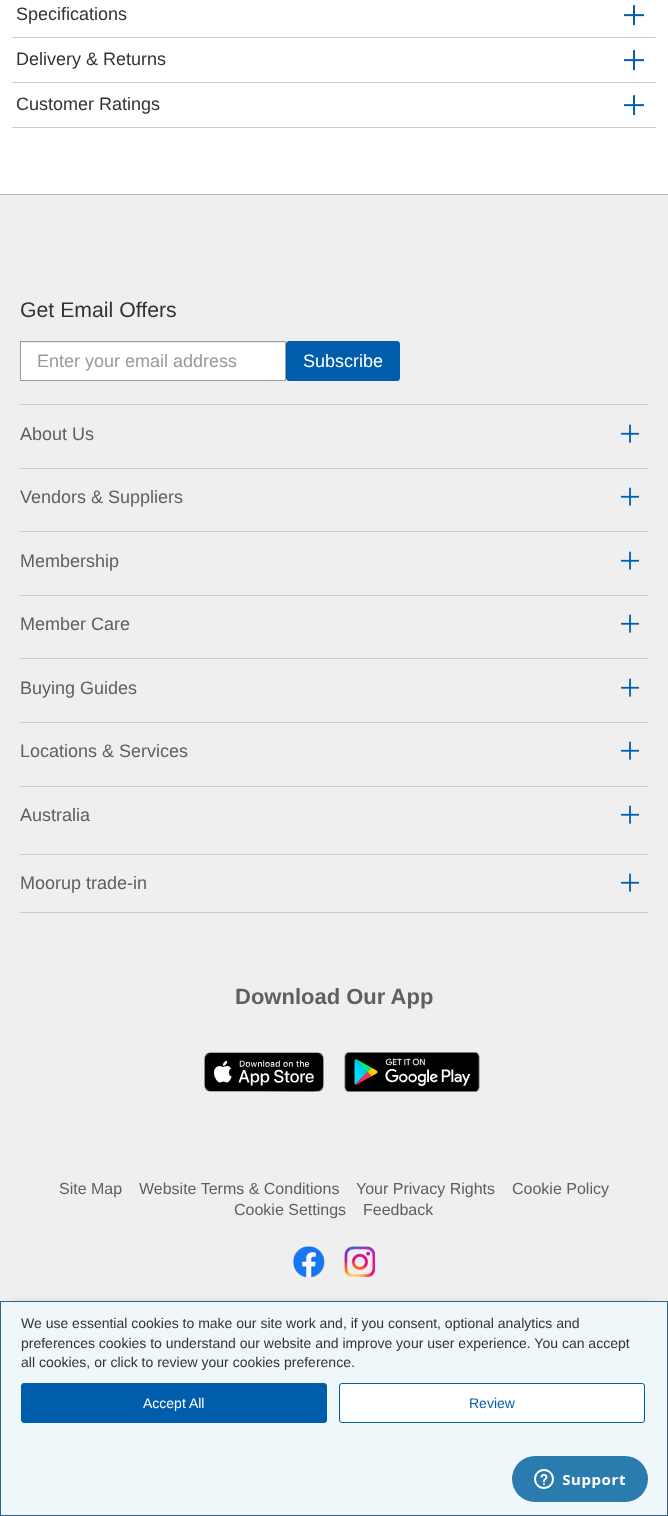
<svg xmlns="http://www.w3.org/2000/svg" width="668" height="1516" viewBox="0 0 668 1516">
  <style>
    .t1 { font: 18px Liberation Sans; fill: #333; }
    .t2 { font: 21.25px Liberation Sans; fill: #333; }
    .t3 { font: 18px Liberation Sans; fill: #999; }
    .t4 { font: 18px Liberation Sans; fill: #fff; }
    .t5 { font: 18px Liberation Sans; fill: #5f5f5f; }
    .t6 { font: bold 22px Liberation Sans; fill: #5f5f5f; }
    .t7 { font: 16px Liberation Sans; fill: #5f5f5f; }
    .t8 { font: 14px Liberation Sans; fill: #333; }
    .t9 { font: 14px Liberation Sans; fill: #fff; }
    .t10 { font: 14px Liberation Sans; fill: #005dab; }
  </style>
  <rect width="100%" height="100%" fill="#fff"/>
  <text x="16" y="20" class="t1">Specifications</text>
  <image x="624" y="5" width="20" height="21" href="images/1.png"/>
  <rect x="12" y="37" width="644" height="1" fill="#ccc"/>
  <text x="16" y="65" class="t1">Delivery &amp; Returns</text>
  <image x="624" y="50" width="20" height="21" href="images/1.png"/>
  <rect x="12" y="82" width="644" height="1" fill="#ccc"/>
  <rect x="12" y="127" width="644" height="1" fill="#ccc"/>
  <text x="16" y="110" class="t1">Customer Ratings</text>
  <image x="624" y="95" width="20" height="21" href="images/1.png"/>
  <rect x="0" y="195" width="668" height="1106" fill="#efefef"/>
  <rect x="0" y="194" width="668" height="1" fill="#b6b6b6"/>
  <text x="20" y="317" class="t2">Get Email Offers</text>
  <rect x="21" y="343" width="264" height="37" fill="#fff"/>
  <rect x="21" y="342" width="264" height="1" fill="#ececec"/>
  <rect x="20.5" y="341.5" width="265" height="39" fill="none" stroke="#9c9c9c"/>
  <text x="37" y="367" class="t3">Enter your email address</text>
  <rect x="286.5" y="341.5" width="113" height="39" rx="2.5" fill="#005dab" stroke="#005dab"/>
  <text x="303" y="367" class="t4">Subscribe</text>
  <rect x="20" y="912" width="628" height="1" fill="#ccc"/>
  <rect x="20" y="404" width="628" height="1" fill="#ccc"/>
  <text x="20" y="440" class="t5">About Us</text>
  <image x="621" y="424" width="18" height="19" href="images/2.png"/>
  <rect x="20" y="468" width="628" height="1" fill="#ccc"/>
  <text x="20" y="503" class="t5">Vendors &amp; Suppliers</text>
  <image x="621" y="487" width="18" height="19" href="images/2.png"/>
  <rect x="20" y="531" width="628" height="1" fill="#ccc"/>
  <text x="20" y="567" class="t5">Membership</text>
  <image x="621" y="551" width="18" height="19" href="images/2.png"/>
  <rect x="20" y="595" width="628" height="1" fill="#ccc"/>
  <text x="20" y="630" class="t5">Member Care</text>
  <image x="621" y="614" width="18" height="19" href="images/2.png"/>
  <rect x="20" y="658" width="628" height="1" fill="#ccc"/>
  <text x="20" y="694" class="t5">Buying Guides</text>
  <image x="621" y="678" width="18" height="19" href="images/2.png"/>
  <rect x="20" y="722" width="628" height="1" fill="#ccc"/>
  <text x="20" y="757" class="t5">Locations &amp; Services</text>
  <image x="621" y="741" width="18" height="19" href="images/2.png"/>
  <rect x="20" y="786" width="628" height="1" fill="#ccc"/>
  <text x="20" y="821" class="t5">Australia</text>
  <image x="621" y="805" width="18" height="19" href="images/2.png"/>
  <rect x="20" y="854" width="628" height="1" fill="#ccc"/>
  <text x="20" y="889" class="t5">Moorup trade-in</text>
  <image x="621" y="873" width="18" height="19" href="images/2.png"/>
  <text x="235" y="1004" class="t6">Download Our App</text>
  <image x="204" y="1052" width="120" height="40" href="images/3.png"/>
  <image x="344" y="1052" width="136" height="40" href="images/4.png"/>
  <text x="59" y="1194" class="t7">Site Map</text>
  <text x="139" y="1194" class="t7">Website Terms &amp; Conditions</text>
  <text x="356" y="1194" class="t7">Your Privacy Rights</text>
  <text x="512" y="1194" class="t7">Cookie Policy</text>
  <text x="234" y="1215" class="t7">Cookie Settings</text>
  <text x="363" y="1215" class="t7">Feedback</text>
  <image x="293" y="1246" width="32" height="32" href="images/5.png"/>
  <image x="344" y="1246" width="32" height="32" href="images/6.png"/>
  <rect x="14" y="1305" width="640" height="187" fill="#9c9c9c" filter="blur(5px)"/>
  <rect x="0.5" y="1301.5" width="667" height="214" fill="#eff7fb" stroke="#2a6293"/>
  <text x="21" y="1328" class="t8">We use essential cookies to make our site work and, if you consent, optional analytics and</text>
  <text x="21" y="1348" class="t8">preferences cookies to understand our website and improve your user experience. You can accept</text>
  <text x="21" y="1367" class="t8">all cookies, or click to review your cookies preference.</text>
  <rect x="21.5" y="1383.5" width="305" height="39" rx="2.5" fill="#005dab" stroke="#005dab"/>
  <text x="143" y="1408" class="t9">Accept All</text>
  <rect x="339.5" y="1383.5" width="305" height="39" rx="2.5" fill="#fff" stroke="#005dab"/>
  <text x="469" y="1408" class="t10">Review</text>
  <image x="512" y="1456" width="136" height="46" href="images/7.png"/>
</svg>
